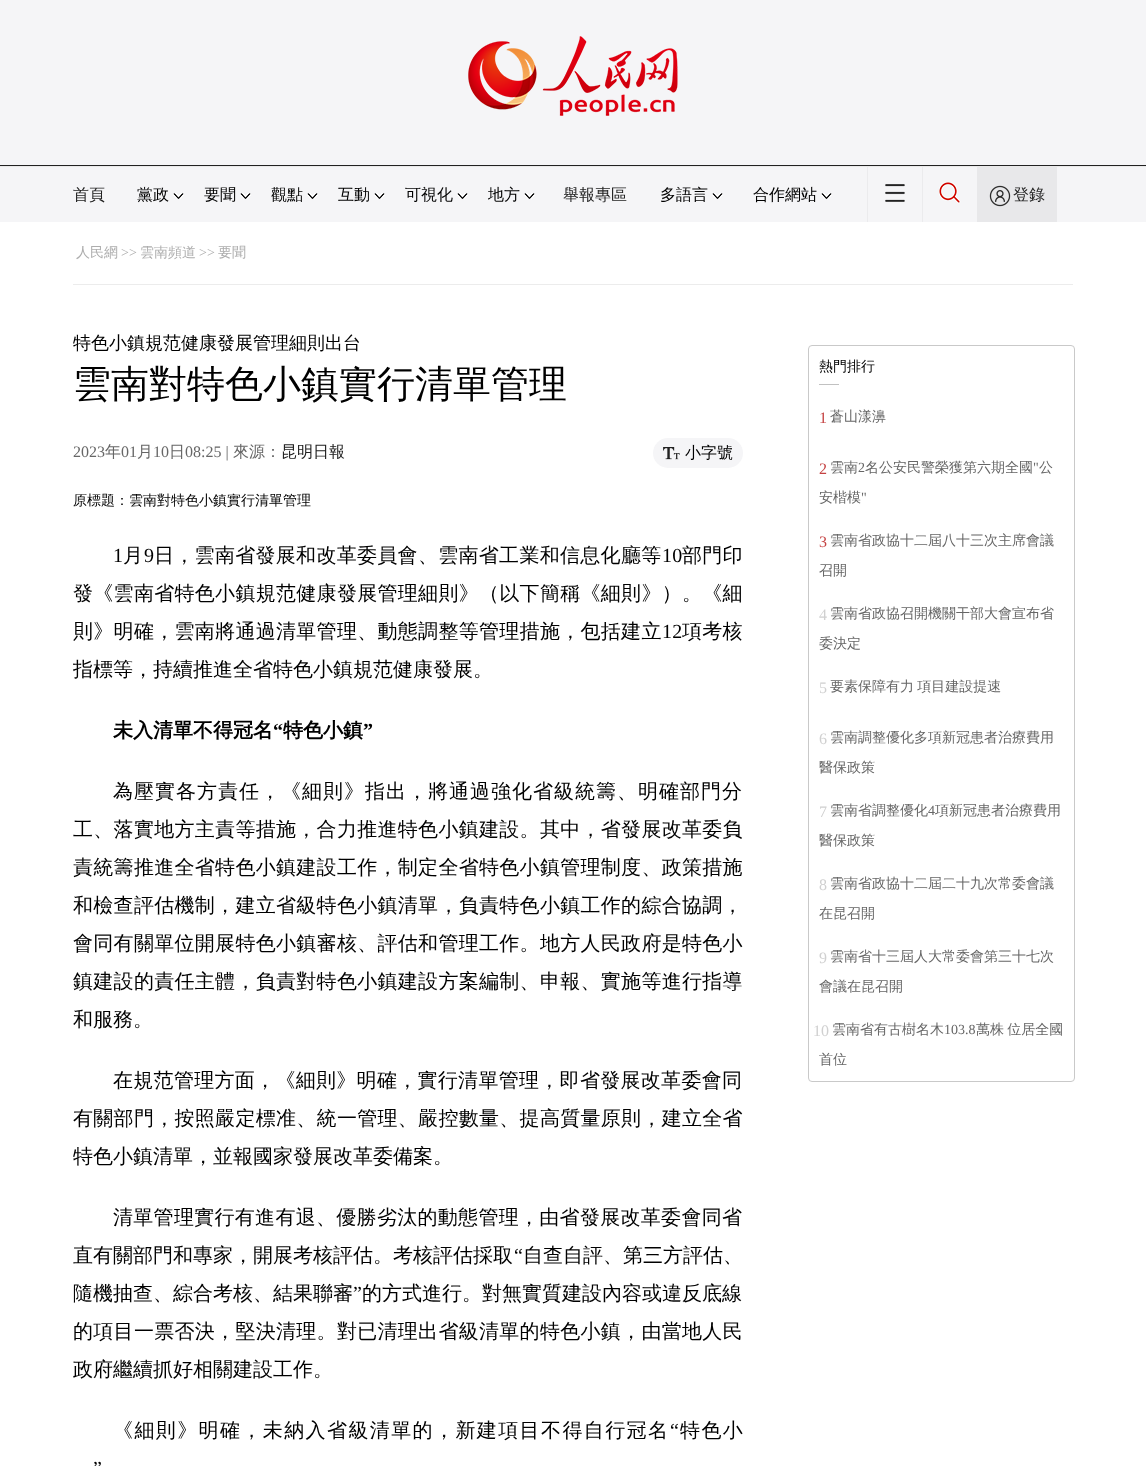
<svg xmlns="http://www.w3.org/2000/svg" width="1146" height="1466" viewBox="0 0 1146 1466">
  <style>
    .t1 { font: 500 16px WenQuanYi Zen Hei; fill: #212121; }
    .t2 { font: 500 16px WenQuanYi Zen Hei; fill: #000; }
    .t3 { font: 500 14px WenQuanYi Zen Hei; fill: #adadad; }
    .t4 { font: 14px Liberation Serif; fill: #adadad; }
    .t5 { font: 500 18px WenQuanYi Zen Hei; fill: #000; }
    .t6 { font: 500 38px WenQuanYi Zen Hei; fill: #000; }
    .t7 { font: 16px Liberation Serif; fill: #666; }
    .t8 { font: 500 16px WenQuanYi Zen Hei; fill: #666; }
    .t9 { font: 500 14px WenQuanYi Zen Hei; fill: #000; }
    .t10 { font: 20px Liberation Serif; letter-spacing: 0.3px; fill: #000; }
    .t11 { font: 500 20px WenQuanYi Zen Hei; letter-spacing: 0.3px; fill: #000; }
    .t12 { font: 500 20px WenQuanYi Zen Hei; fill: #000; }
    .t13 { font: bold 20px WenQuanYi Zen Hei; fill: #000; }
    .t14 { font: bold 20px Liberation Serif; fill: #000; }
    .t15 { font: 500 20px WenQuanYi Zen Hei; letter-spacing: 1px; fill: #000; }
    .t16 { font: 20px Liberation Serif; fill: #000; }
    .t17 { font: 500 20px WenQuanYi Zen Hei; letter-spacing: 1.4px; fill: #000; }
    .t18 { font: 20px Liberation Serif; letter-spacing: 1.4px; fill: #000; }
    .t19 { font: 16px Liberation Serif; fill: #c54242; }
    .t20 { font: 500 14px WenQuanYi Zen Hei; fill: #666; }
    .t21 { font: 14px Liberation Serif; fill: #666; }
    .t22 { font: 16px Liberation Serif; fill: #d0d0d0; }
  </style>
  <rect width="100%" height="100%" fill="#fff"/>
  <rect x="0" y="0" width="1146" height="165" fill="#f5f5f7"/>
  <rect x="0" y="165" width="1146" height="1" fill="#212121"/>
  <image x="468" y="36" width="210" height="80" href="images/1.png"/>
  <rect x="0" y="166" width="1146" height="1" fill="#e9e9e9"/>
  <rect x="0" y="167" width="1146" height="55" fill="#f5f5f7"/>
  <text x="73" y="200" class="t1">首頁</text>
  <text x="137" y="200" class="t2">黨政</text>
  <image x="173" y="193" width="11" height="6" href="images/2.png"/>
  <text x="204" y="200" class="t2">要聞</text>
  <image x="240" y="193" width="11" height="6" href="images/2.png"/>
  <text x="271" y="200" class="t2">觀點</text>
  <image x="307" y="193" width="11" height="6" href="images/2.png"/>
  <text x="338" y="200" class="t2">互動</text>
  <image x="374" y="193" width="11" height="6" href="images/2.png"/>
  <text x="405" y="200" class="t2">可視化</text>
  <image x="457" y="193" width="11" height="6" href="images/2.png"/>
  <text x="488" y="200" class="t2">地方</text>
  <image x="524" y="193" width="11" height="6" href="images/2.png"/>
  <text x="563" y="200" class="t1">舉報專區</text>
  <text x="660" y="200" class="t2">多語言</text>
  <image x="712" y="193" width="11" height="6" href="images/2.png"/>
  <text x="753" y="200" class="t2">合作網站</text>
  <image x="821" y="193" width="11" height="6" href="images/2.png"/>
  <rect x="922" y="167" width="1" height="55" fill="#ebebed"/>
  <rect x="867" y="167" width="1" height="55" fill="#ebebed"/>
  <image x="885" y="184" width="20" height="18" href="images/3.png"/>
  <image x="939" y="182" width="22" height="22" href="images/4.png"/>
  <rect x="977" y="167" width="80" height="55" fill="#e8e8ea"/>
  <image x="989" y="185" width="22" height="22" href="images/5.png"/>
  <text x="1013" y="200" class="t1">登錄</text>
  <rect x="73" y="284" width="1000" height="1" fill="#ececec"/>
  <text x="76" y="257" class="t3">人民網</text>
  <text x="121" y="257" class="t4">&gt;&gt;</text>
  <text x="140" y="257" class="t3">雲南頻道</text>
  <text x="199" y="257" class="t4">&gt;&gt;</text>
  <text x="218" y="257" class="t3">要聞</text>
  <text x="73" y="349" class="t5">特色小鎮規范健康發展管理細則出台</text>
  <text x="73" y="397" class="t6">雲南對特色小鎮實行清單管理</text>
  <text x="73" y="457" class="t7">2023</text>
  <text x="105" y="457" class="t8">年</text>
  <text x="121" y="457" class="t7">01</text>
  <text x="137" y="457" class="t8">月</text>
  <text x="153" y="457" class="t7">10</text>
  <text x="169" y="457" class="t8">日</text>
  <text x="185" y="457" class="t7">08:25 |</text>
  <text x="233" y="457" class="t8">來源：</text>
  <text x="281" y="457" class="t1">昆明日報</text>
  <rect x="653" y="438" width="90" height="30" rx="15" fill="#f5f5f7"/>
  <image x="663" y="447" width="17" height="13" href="images/6.png"/>
  <text x="685" y="458" class="t2">小字號</text>
  <text x="73" y="505" class="t9">原標題：雲南對特色小鎮實行清單管理</text>
  <text x="113" y="562" class="t10">1</text>
  <text x="123" y="562" class="t11">月</text>
  <text x="144" y="562" class="t10">9</text>
  <text x="154" y="562" class="t11">日，雲南省發展和改革委員會、雲南省工業和信息化廳等</text>
  <text x="662" y="562" class="t10">10</text>
  <text x="682" y="562" class="t11">部門印</text>
  <text x="73" y="600" class="t11">發《雲南省特色小鎮規范健康發展管理細則》（以下簡稱《細則》）。《細</text>
  <text x="73" y="638" class="t11">則》明確，雲南將通過清單管理、動態調整等管理措施，包括建立</text>
  <text x="662" y="638" class="t10">12</text>
  <text x="682" y="638" class="t11">項考核</text>
  <text x="73" y="676" class="t12">指標等，持續推進全省特色小鎮規范健康發展。</text>
  <text x="113" y="737" class="t13">未入清單不得冠名</text>
  <text x="273" y="737" class="t14">“</text>
  <text x="283" y="737" class="t13">特色小鎮</text>
  <text x="363" y="737" class="t14">”</text>
  <text x="113" y="798" class="t15">為壓實各方責任，《細則》指出，將通過強化省級統籌、明確部門分</text>
  <text x="73" y="836" class="t11">工、落實地方主責等措施，合力推進特色小鎮建設。其中，省發展改革委負</text>
  <text x="73" y="874" class="t11">責統籌推進全省特色小鎮建設工作，制定全省特色小鎮管理制度、政策措施</text>
  <text x="73" y="912" class="t11">和檢查評估機制，建立省級特色小鎮清單，負責特色小鎮工作的綜合協調，</text>
  <text x="73" y="950" class="t11">會同有關單位開展特色小鎮審核、評估和管理工作。地方人民政府是特色小</text>
  <text x="73" y="988" class="t11">鎮建設的責任主體，負責對特色小鎮建設方案編制、申報、實施等進行指導</text>
  <text x="73" y="1026" class="t12">和服務。</text>
  <text x="113" y="1087" class="t11">在規范管理方面，《細則》明確，實行清單管理，即省發展改革委會同</text>
  <text x="73" y="1125" class="t11">有關部門，按照嚴定標准、統一管理、嚴控數量、提高質量原則，建立全省</text>
  <text x="73" y="1163" class="t12">特色小鎮清單，並報國家發展改革委備案。</text>
  <text x="113" y="1224" class="t11">清單管理實行有進有退、優勝劣汰的動態管理，由省發展改革委會同省</text>
  <text x="73" y="1262" class="t12">直有關部門和專家，開展考核評估。考核評估採取</text>
  <text x="514" y="1262" class="t16">“</text>
  <text x="523" y="1262" class="t12">自查自評、第三方評估、</text>
  <text x="73" y="1300" class="t12">隨機抽查、綜合考核、結果聯審</text>
  <text x="353" y="1300" class="t16">”</text>
  <text x="362" y="1300" class="t12">的方式進行。對無實質建設內容或違反底線</text>
  <text x="73" y="1338" class="t11">的項目一票否決，堅決清理。對已清理出省級清單的特色小鎮，由當地人民</text>
  <text x="73" y="1376" class="t12">政府繼續抓好相關建設工作。</text>
  <text x="113" y="1437" class="t17">《細則》明確，未納入省級清單的，新建項目不得自行冠名</text>
  <text x="670" y="1437" class="t18">“</text>
  <text x="680" y="1437" class="t17">特色小</text>
  <text x="93" y="1475" class="t16">”</text>
  <rect x="808.5" y="345.5" width="266" height="736" rx="3.5" fill="none" stroke="#c9c9c9"/>
  <text x="819" y="371" class="t9">熱門排行</text>
  <rect x="819" y="384" width="20" height="1" fill="#c1c1c1"/>
  <text x="819" y="423" class="t19">1</text>
  <text x="830" y="421" class="t20">蒼山漾濞</text>
  <text x="819" y="474" class="t19">2</text>
  <text x="830" y="472" class="t20">雲南</text>
  <text x="858" y="472" class="t21">2</text>
  <text x="865" y="472" class="t20">名公安民警榮獲第六期全國</text>
  <text x="1033" y="472" class="t21">"</text>
  <text x="1039" y="472" class="t20">公</text>
  <text x="819" y="502" class="t20">安楷模</text>
  <text x="861" y="502" class="t21">"</text>
  <text x="819" y="547" class="t19">3</text>
  <text x="830" y="545" class="t20">雲南省政協十二屆八十三次主席會議</text>
  <text x="819" y="575" class="t20">召開</text>
  <text x="819" y="620" class="t22">4</text>
  <text x="830" y="618" class="t20">雲南省政協召開機關干部大會宣布省</text>
  <text x="819" y="648" class="t20">委決定</text>
  <text x="819" y="693" class="t22">5</text>
  <text x="830" y="691" word-spacing="-1" class="t20">要素保障有力 項目建設提速</text>
  <text x="819" y="744" class="t22">6</text>
  <text x="830" y="742" class="t20">雲南調整優化多項新冠患者治療費用</text>
  <text x="819" y="772" class="t20">醫保政策</text>
  <text x="819" y="817" class="t22">7</text>
  <text x="830" y="815" class="t20">雲南省調整優化</text>
  <text x="928" y="815" class="t21">4</text>
  <text x="935" y="815" class="t20">項新冠患者治療費用</text>
  <text x="819" y="845" class="t20">醫保政策</text>
  <text x="819" y="890" class="t22">8</text>
  <text x="830" y="888" class="t20">雲南省政協十二屆二十九次常委會議</text>
  <text x="819" y="918" class="t20">在昆召開</text>
  <text x="819" y="963" class="t22">9</text>
  <text x="830" y="961" class="t20">雲南省十三屆人大常委會第三十七次</text>
  <text x="819" y="991" class="t20">會議在昆召開</text>
  <text x="813" y="1036" class="t22">10</text>
  <text x="832" y="1034" class="t20">雲南省有古樹名木</text>
  <text x="944" y="1034" class="t21">103.8</text>
  <text x="976" y="1034" word-spacing="-1" class="t20">萬株 位居全國</text>
  <text x="819" y="1064" class="t20">首位</text>
</svg>
